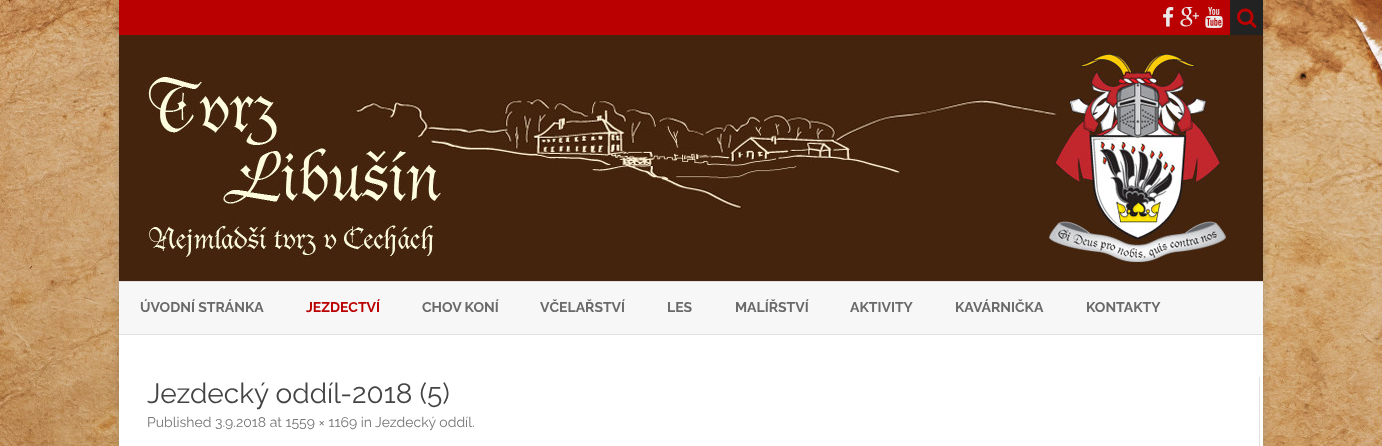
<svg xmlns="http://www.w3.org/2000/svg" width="1382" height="446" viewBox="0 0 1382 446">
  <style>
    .t1 { font: bold 14px Raleway; fill: #6a6a6a; }
    .t2 { font: bold 14px Raleway; fill: #ba0000; }
    .t3 { font: 28px Raleway; fill: #444; }
    .t4 { font: 14px Raleway; fill: #757575; }
  </style>
  <rect width="100%" height="100%" fill="#fff"/>
  <image x="0" y="0" width="1382" height="446" href="images/1.png"/>
  <rect x="119" y="2" width="1144" height="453" fill="#6464644d" filter="blur(3px)"/>
  <rect x="119" y="335" width="1144" height="111" fill="#fff"/>
  <rect x="119" y="0" width="1111" height="35" fill="#ba0000"/>
  <image x="1163" y="7" width="11" height="20" href="images/2.png"/>
  <image x="1180" y="7" width="19" height="20" href="images/3.png"/>
  <image x="1205" y="7" width="18" height="21" href="images/4.png"/>
  <rect x="1230" y="0" width="33" height="35" fill="#222"/>
  <image x="1237" y="8" width="20" height="20" href="images/5.png"/>
  <image x="119" y="35" width="1144" height="246" href="images/6.png"/>
  <rect x="119" y="282" width="1144" height="52" fill="#f7f7f7"/>
  <rect x="119" y="281" width="1144" height="1" fill="#e0e0e0"/>
  <rect x="119" y="334" width="1144" height="1" fill="#e0e0e0"/>
  <text x="140" y="312" class="t1">ÚVODNÍ STRÁNKA</text>
  <text x="306" y="312" class="t2">JEZDECTVÍ</text>
  <text x="422" y="312" class="t1">CHOV KONÍ</text>
  <text x="540" y="312" class="t1">VČELAŘSTVÍ</text>
  <text x="667" y="312" class="t1">LES</text>
  <text x="735" y="312" class="t1">MALÍŘSTVÍ</text>
  <text x="850" y="312" class="t1">AKTIVITY</text>
  <text x="955" y="312" class="t1">KAVÁRNIČKA</text>
  <text x="1086" y="312" class="t1">KONTAKTY</text>
  <rect x="1259" y="377" width="1" height="69" fill="#e0e0e0"/>
  <text x="147" y="403" class="t3">Jezdecký oddíl-2018 (5)</text>
  <text x="147" y="427" class="t4">Published 3.9.2018 at 1559 × 1169 in Jezdecký oddíl.</text>
</svg>
